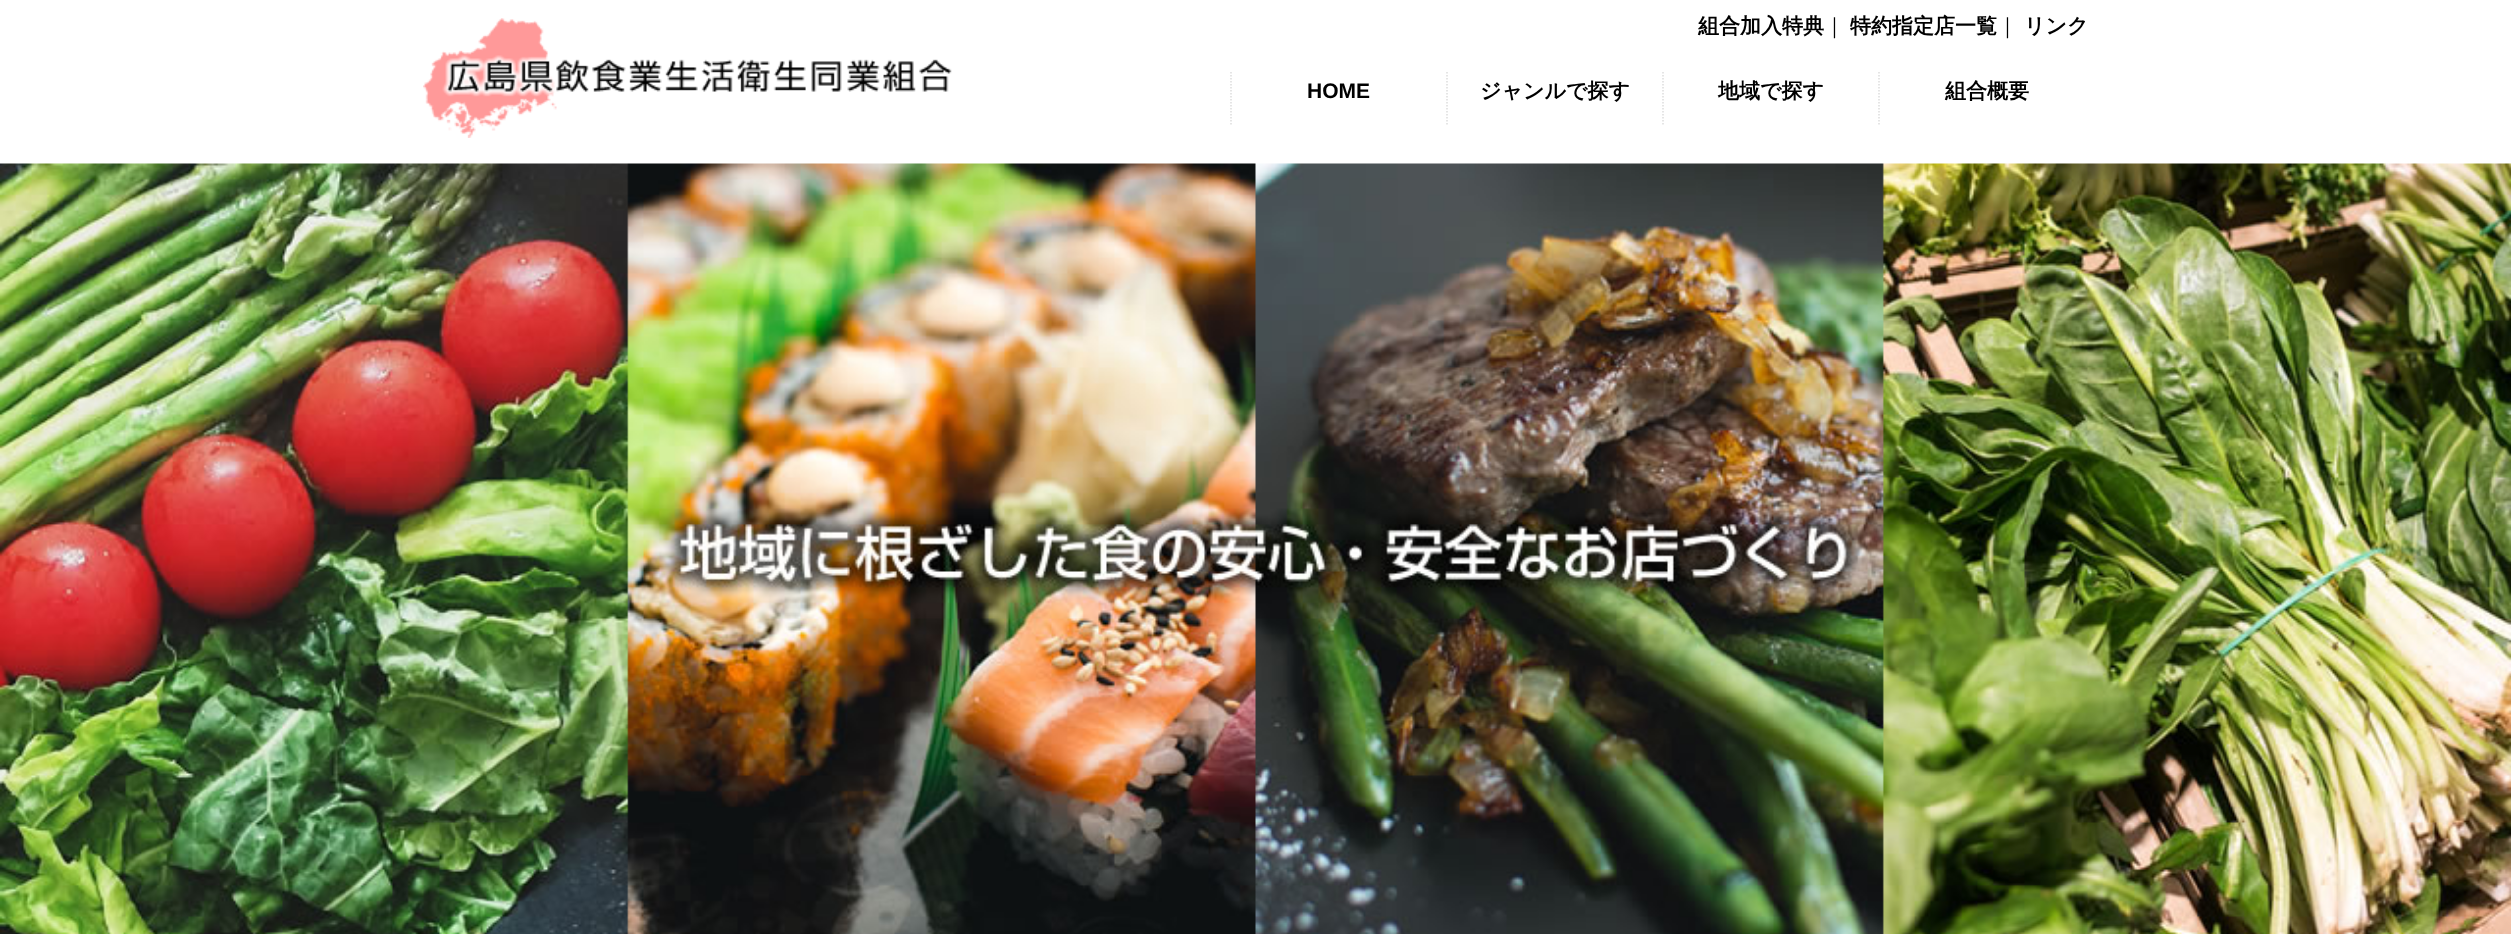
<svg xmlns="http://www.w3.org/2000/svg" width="2511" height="934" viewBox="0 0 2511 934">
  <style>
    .t1 { font: bold 21px WenQuanYi Zen Hei; fill: #000; }
    .t2 { font: 500 21px WenQuanYi Zen Hei; fill: #000; }
    .t3 { font: bold 21px Liberation Sans; fill: #000; }
  </style>
  <rect width="100%" height="100%" fill="#fff"/>
  <image x="423" y="18" width="529" height="120" href="images/1.png"/>
  <text x="1698" y="33" class="t1">組合加入特典</text>
  <text x="1824" y="33" class="t2">｜</text>
  <text x="1850" y="33" class="t1">特約指定店一覧</text>
  <text x="1997" y="33" class="t2">｜</text>
  <text x="2024" y="33" class="t1">リンク</text>
  <path d="M1231 72V126" fill="none" stroke="#ddd" stroke-width="1.5" stroke-dasharray="1.5 1.5"/>
  <text x="1307" y="98" class="t3">HOME</text>
  <path d="M1447 72V126" fill="none" stroke="#ddd" stroke-width="1.5" stroke-dasharray="1.5 1.5"/>
  <text x="1480" y="98" class="t1">ジャンルで探す</text>
  <path d="M1663 72V126" fill="none" stroke="#ddd" stroke-width="1.5" stroke-dasharray="1.5 1.5"/>
  <text x="1718" y="98" class="t1">地域で探す</text>
  <path d="M1879 72V126" fill="none" stroke="#ddd" stroke-width="1.5" stroke-dasharray="1.5 1.5"/>
  <text x="1945" y="98" class="t1">組合概要</text>
  <image x="0" y="163" width="2511" height="771" href="images/2.png"/>
</svg>
